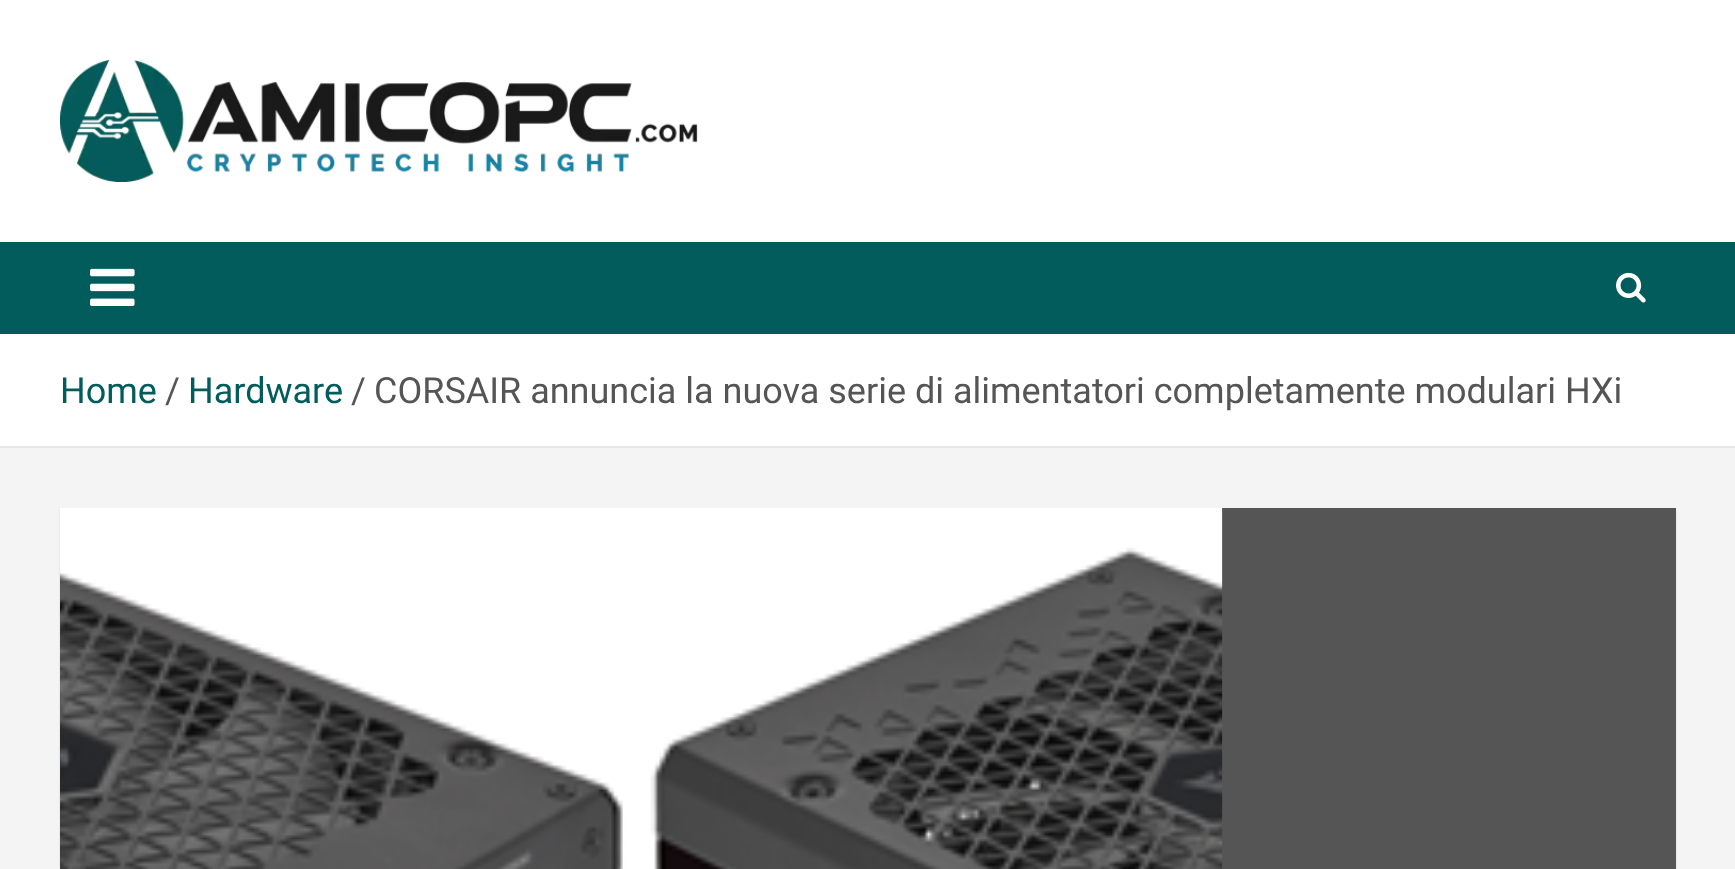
<svg xmlns="http://www.w3.org/2000/svg" width="1735" height="869" viewBox="0 0 1735 869">
  <style>
    .t1 { font: 36px Roboto; fill: #035c5c; }
    .t2 { font: 36px Roboto; fill: #555; }
  </style>
  <rect width="100%" height="100%" fill="#f4f4f4"/>
  <rect x="0" y="0" width="1735" height="242" fill="#fff"/>
  <image x="60" y="60" width="638" height="122" href="images/1.png"/>
  <rect x="0" y="242" width="1735" height="92" fill="#035c5c"/>
  <image x="90" y="268" width="45" height="38" href="images/2.png"/>
  <image x="1616" y="272" width="30" height="31" href="images/3.png"/>
  <rect x="0" y="334" width="1735" height="112" fill="#fff"/>
  <rect x="0" y="446" width="1735" height="2" fill="#e6e6e6"/>
  <text x="60" y="403" class="t1">Home</text>
  <text x="165" y="403" class="t2">/</text>
  <text x="188" y="403" class="t1">Hardware</text>
  <text x="351" y="403" class="t2">/</text>
  <text x="374" y="403" class="t2">CORSAIR annuncia la nuova serie di alimentatori completamente modulari HXi</text>
  <rect x="60" y="510" width="1616" height="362" fill="#0000001a" filter="blur(1px)"/>
  <rect x="1222" y="508" width="454" height="361" fill="#555"/>
  <image x="60" y="508" width="1163" height="361" href="images/4.png"/>
</svg>
